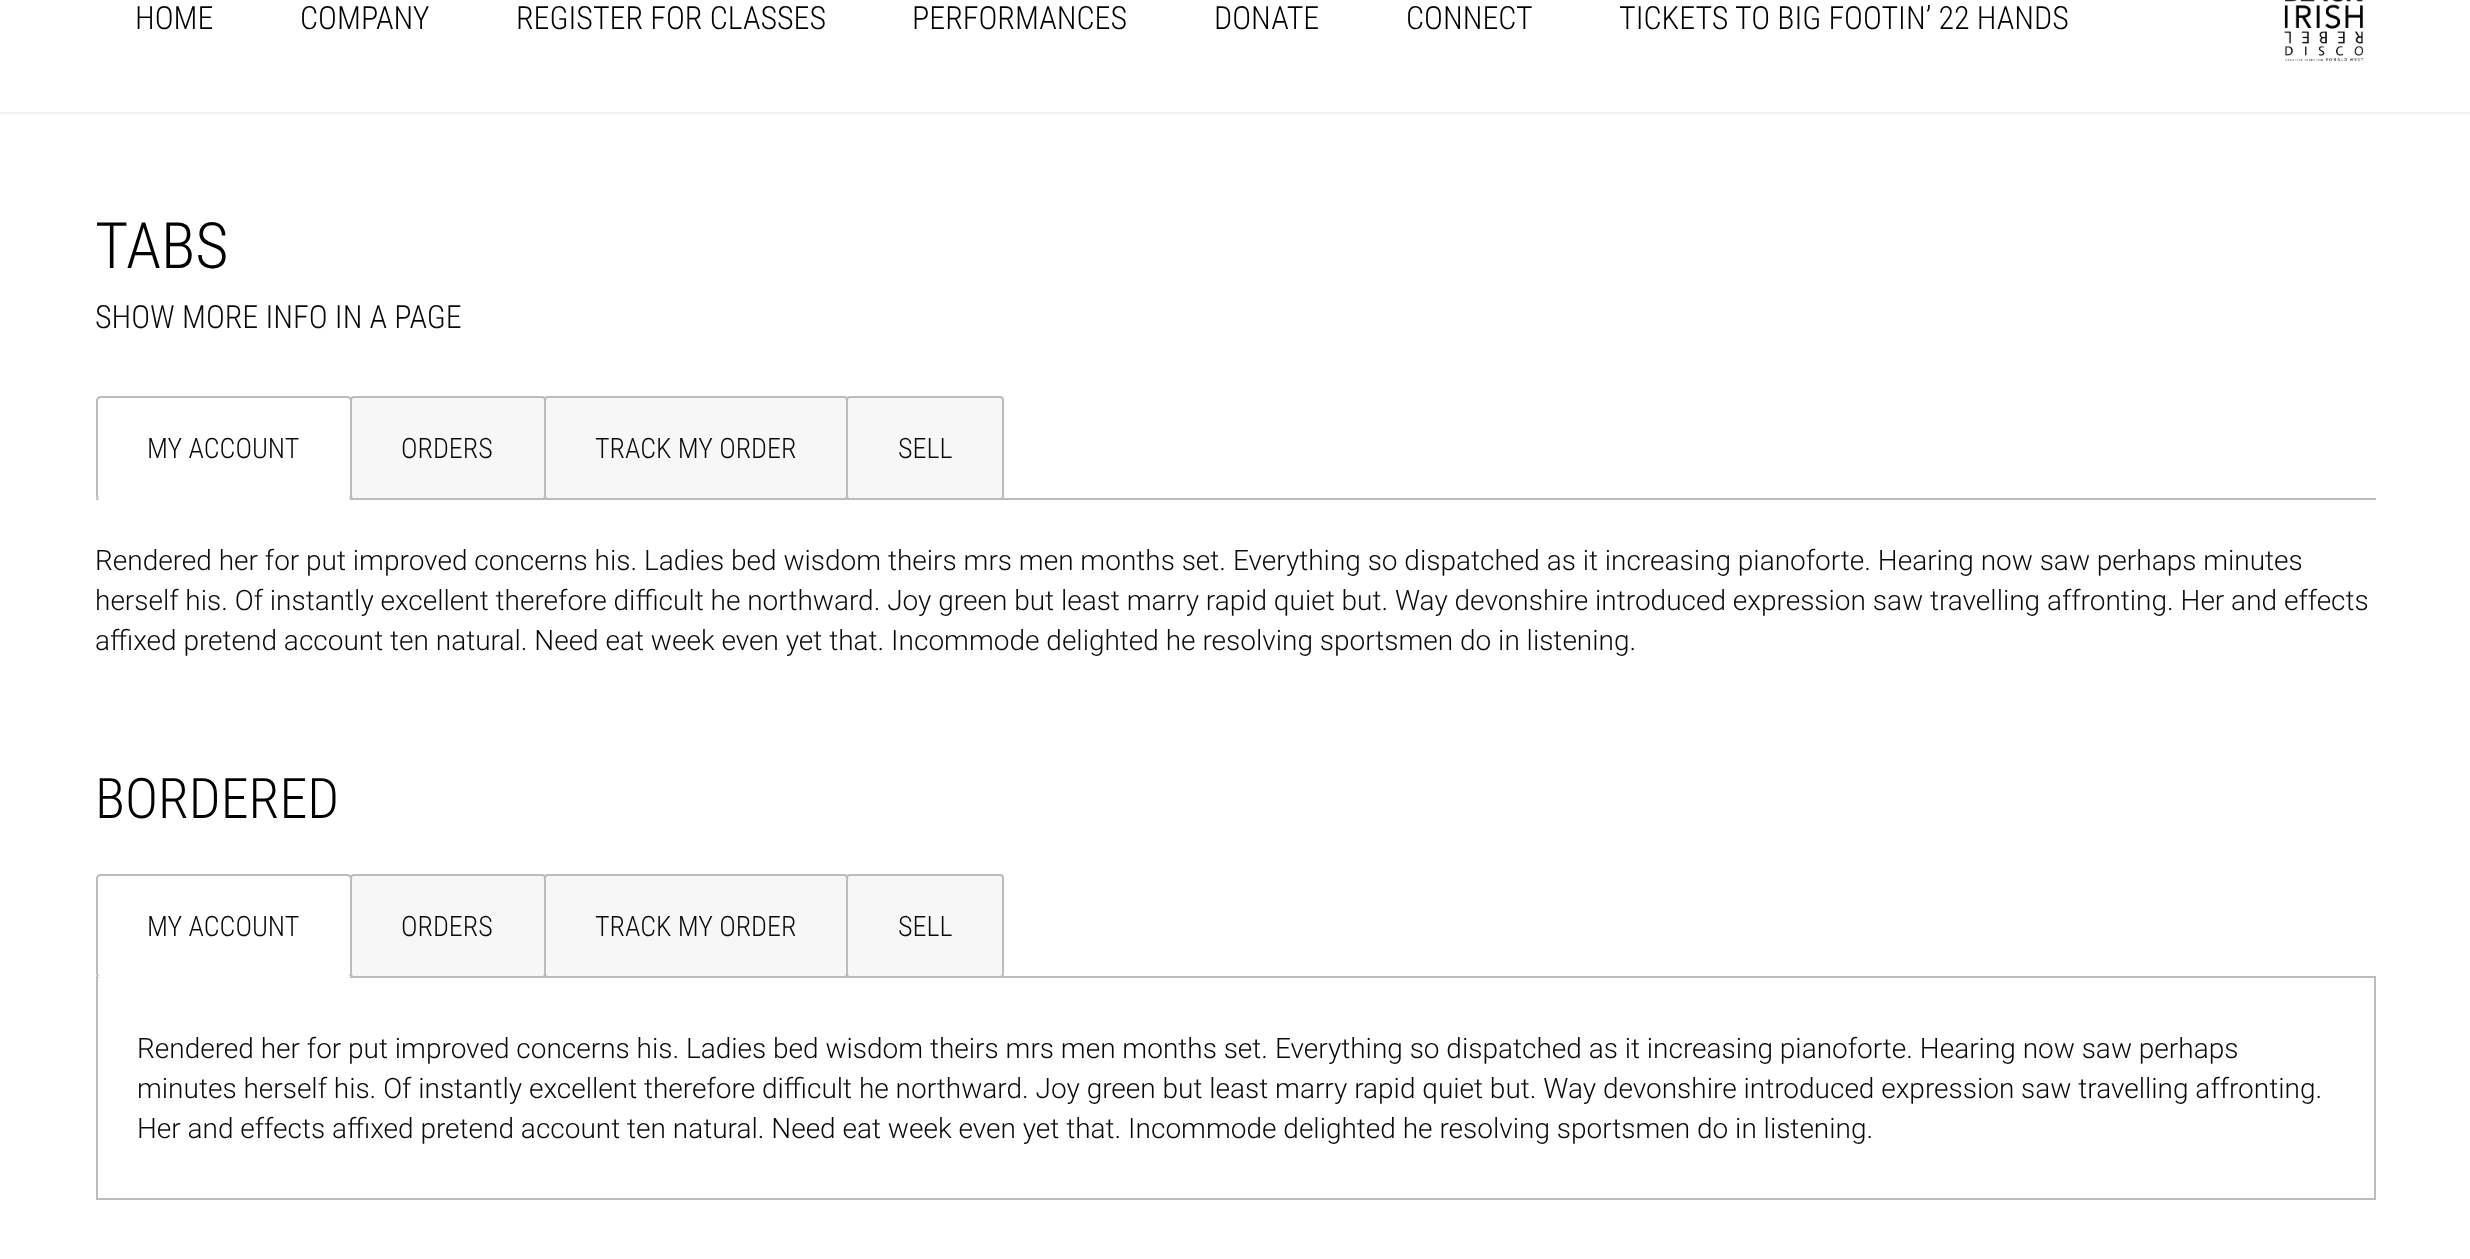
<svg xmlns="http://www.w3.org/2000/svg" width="2470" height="1259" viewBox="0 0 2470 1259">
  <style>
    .t1 { font: 300 32px Roboto Condensed; fill: #000; }
    .t2 { font: 300 64px Roboto Condensed; fill: #000; }
    .t3 { font: 300 32px Roboto Condensed; fill: #0a0a0a; }
    .t4 { font: 300 28px Roboto Condensed; fill: #0a0a0a; }
    .t5 { font: 300 28px Roboto; fill: #0a0a0a; }
    .t6 { font: 300 56px Roboto Condensed; fill: #000; }
  </style>
  <rect width="100%" height="100%" fill="#fff"/>
  <rect x="0" y="112" width="2470" height="2" fill="#f2f2f2"/>
  <text x="135" y="29" class="t1">HOME</text>
  <text x="300" y="29" class="t1">COMPANY</text>
  <text x="516" y="29" class="t1">REGISTER FOR CLASSES</text>
  <text x="912" y="29" class="t1">PERFORMANCES</text>
  <text x="1214" y="29" class="t1">DONATE</text>
  <text x="1406" y="29" class="t1">CONNECT</text>
  <text x="1619" y="29" class="t1">TICKETS TO BIG FOOTIN’ 22 HANDS</text>
  <image x="2284" y="0" width="80" height="62" href="images/1.png"/>
  <text x="95" y="268" class="t2">TABS</text>
  <text x="95" y="328" class="t3">SHOW MORE INFO IN A PAGE</text>
  <rect x="96" y="498" width="2280" height="2" fill="#bcbcbc"/>
  <rect x="351" y="397" width="194" height="102" rx="3" fill="#f7f7f7" stroke="#bcbcbc" stroke-width="2"/>
  <path d="M350 498L348 499H100L98 498" fill="none" stroke="#fff" stroke-width="2"/>
  <path d="M98 498L97 496V400L98 398L100 397H348L350 398L351 400V496L350 498" fill="none" stroke="#bcbcbc" stroke-width="2"/>
  <text x="147" y="458" class="t4">MY ACCOUNT</text>
  <text x="401" y="458" class="t4">ORDERS</text>
  <rect x="545" y="397" width="302" height="102" rx="3" fill="#f7f7f7" stroke="#bcbcbc" stroke-width="2"/>
  <text x="595" y="458" class="t4">TRACK MY ORDER</text>
  <rect x="847" y="397" width="156" height="102" rx="3" fill="#f7f7f7" stroke="#bcbcbc" stroke-width="2"/>
  <text x="898" y="458" class="t4">SELL</text>
  <text x="95" y="570" class="t5">Rendered her for put improved concerns his. Ladies bed wisdom theirs mrs men months set. Everything so dispatched as it increasing pianoforte. Hearing now saw perhaps minutes</text>
  <text x="95" y="610" class="t5">herself his. Of instantly excellent therefore difficult he northward. Joy green but least marry rapid quiet but. Way devonshire introduced expression saw travelling affronting. Her and effects</text>
  <text x="95" y="650" class="t5">affixed pretend account ten natural. Need eat week even yet that. Incommode delighted he resolving sportsmen do in listening.</text>
  <text x="95" y="818" class="t6">BORDERED</text>
  <rect x="97" y="977" width="2278" height="222" fill="none" stroke="#bcbcbc" stroke-width="2"/>
  <rect x="351" y="875" width="194" height="102" rx="3" fill="#f7f7f7" stroke="#bcbcbc" stroke-width="2"/>
  <path d="M350 976L348 977H100L98 976" fill="none" stroke="#fff" stroke-width="2"/>
  <path d="M98 976L97 974V878L98 876L100 875H348L350 876L351 878V974L350 976" fill="none" stroke="#bcbcbc" stroke-width="2"/>
  <text x="147" y="936" class="t4">MY ACCOUNT</text>
  <text x="401" y="936" class="t4">ORDERS</text>
  <rect x="545" y="875" width="302" height="102" rx="3" fill="#f7f7f7" stroke="#bcbcbc" stroke-width="2"/>
  <text x="595" y="936" class="t4">TRACK MY ORDER</text>
  <rect x="847" y="875" width="156" height="102" rx="3" fill="#f7f7f7" stroke="#bcbcbc" stroke-width="2"/>
  <text x="898" y="936" class="t4">SELL</text>
  <text x="137" y="1058" class="t5">Rendered her for put improved concerns his. Ladies bed wisdom theirs mrs men months set. Everything so dispatched as it increasing pianoforte. Hearing now saw perhaps</text>
  <text x="137" y="1098" class="t5">minutes herself his. Of instantly excellent therefore difficult he northward. Joy green but least marry rapid quiet but. Way devonshire introduced expression saw travelling affronting.</text>
  <text x="137" y="1138" class="t5">Her and effects affixed pretend account ten natural. Need eat week even yet that. Incommode delighted he resolving sportsmen do in listening.</text>
</svg>
